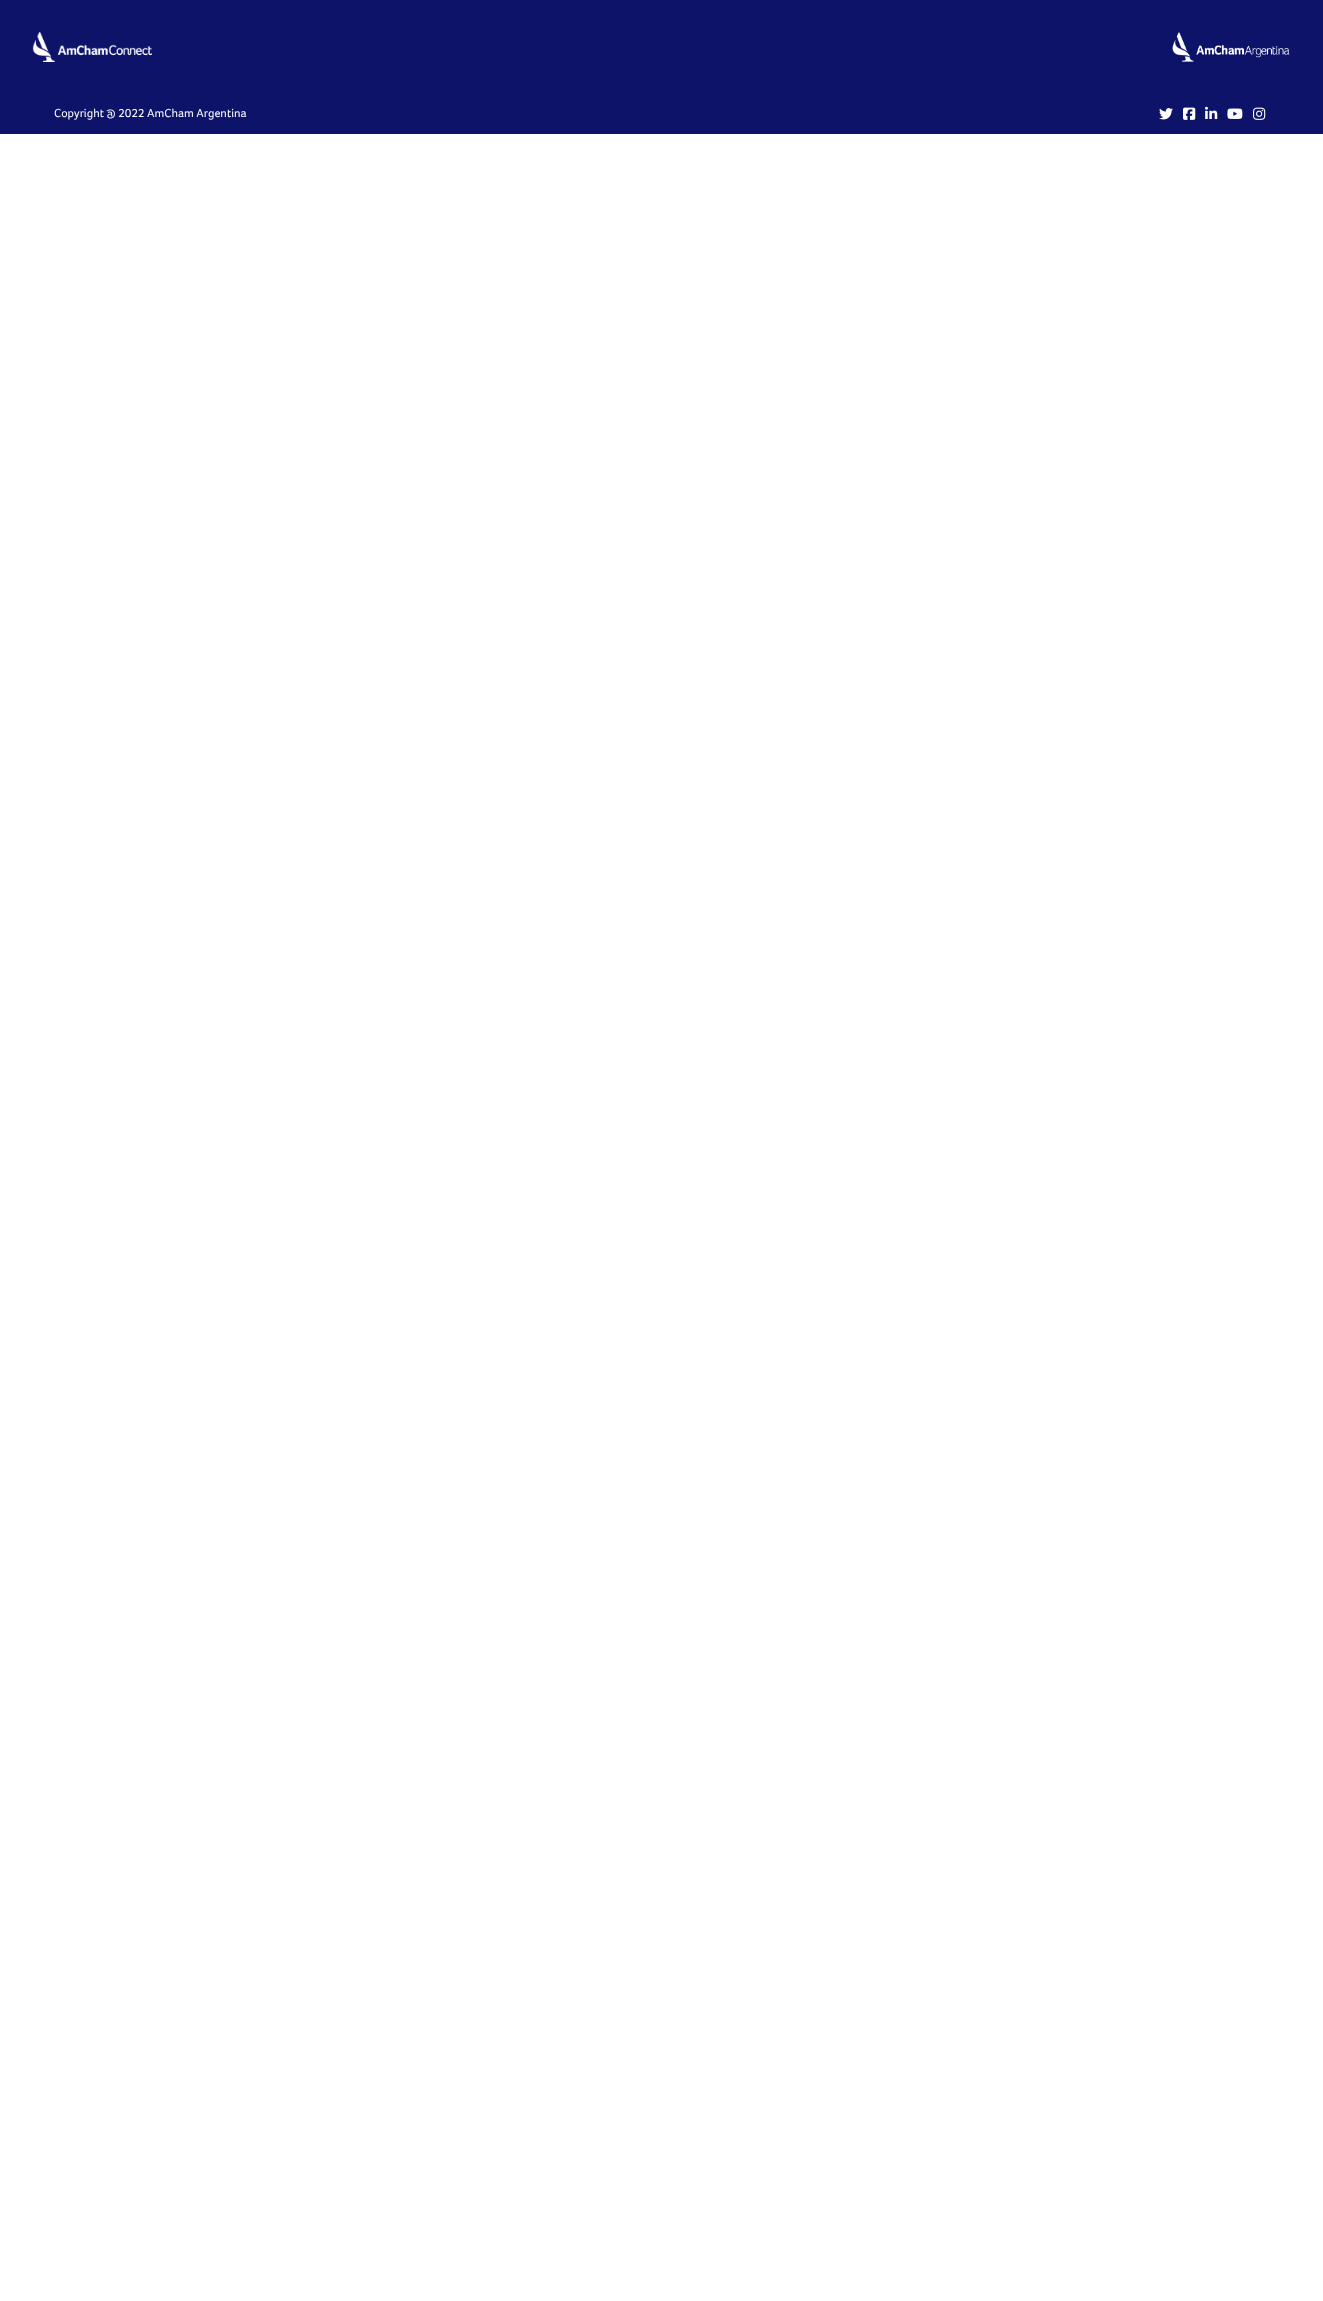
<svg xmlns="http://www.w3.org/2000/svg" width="1323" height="2301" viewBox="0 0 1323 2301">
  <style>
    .t1 { font: 12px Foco; fill: #fafafa; }
  </style>
  <rect width="100%" height="100%" fill="#fff"/>
  <rect x="0" y="0" width="1323" height="134" fill="#0d1369"/>
  <image x="32" y="32" width="120" height="30" href="images/1.png"/>
  <image x="1172" y="32" width="118" height="30" href="images/2.png"/>
  <text x="54" y="117" class="t1">Copyright @ 2022 AmCham Argentina</text>
  <image x="1159" y="108" width="14" height="12" href="images/3.png"/>
  <image x="1183" y="107" width="13" height="13" href="images/4.png"/>
  <image x="1205" y="106" width="13" height="13" href="images/5.png"/>
  <image x="1227" y="108" width="16" height="11" href="images/6.png"/>
  <image x="1253" y="107" width="13" height="13" href="images/7.png"/>
</svg>
